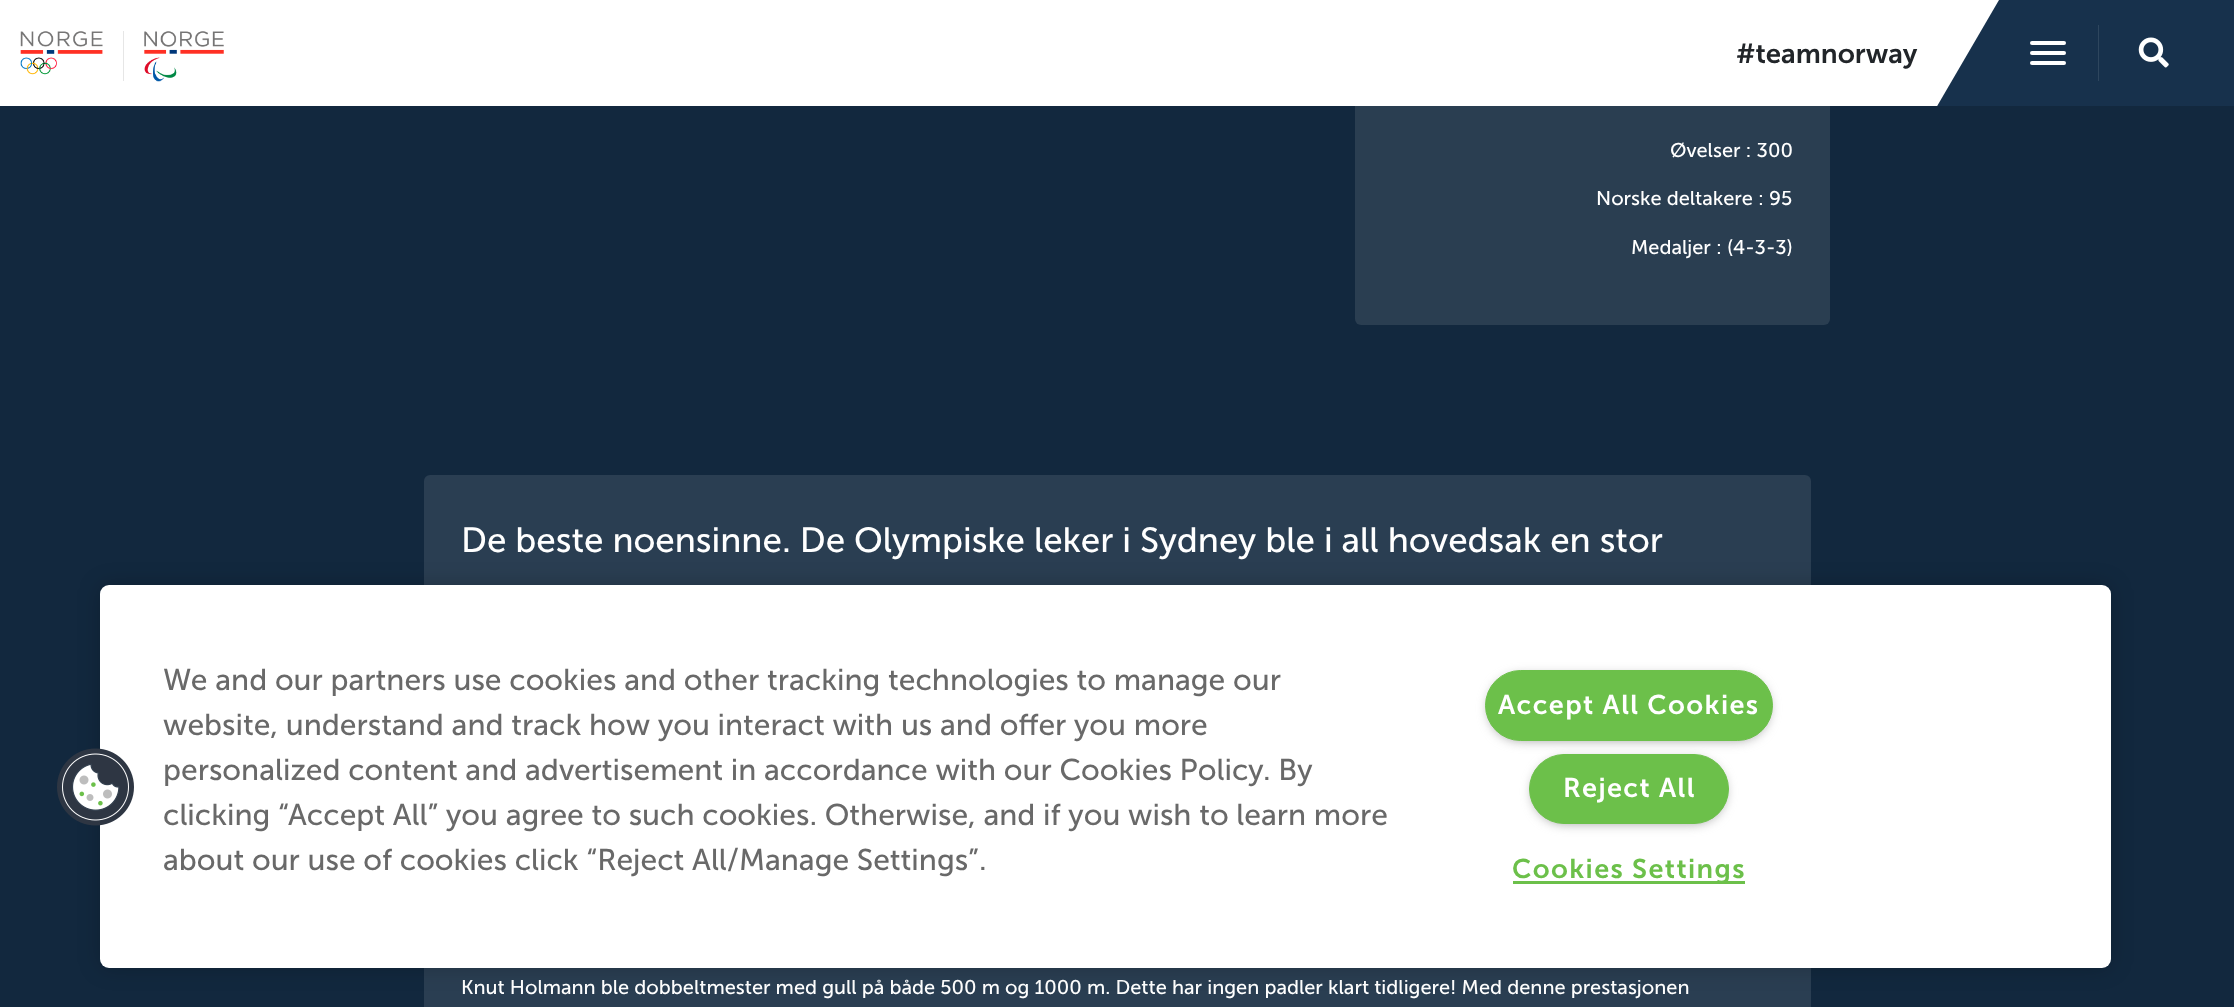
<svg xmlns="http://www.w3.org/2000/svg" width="2234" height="1007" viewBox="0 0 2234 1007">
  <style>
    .t1 { font: 600 27.5px 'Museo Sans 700'; fill: #212529; }
    .t2 { font: 20px 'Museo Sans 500'; fill: #fff; }
    .t3 { font: 35px 'Museo Sans 500'; fill: #fff; }
    .t4 { font: 30px 'Museo Sans 500'; fill: #696969; }
    .t5 { font: 600 27px 'Museo Sans 700'; letter-spacing: 1.4px; fill: #fff; }
    .t6 { font: 600 27px 'Museo Sans 700'; letter-spacing: 1.4px; fill: #6cc04a; }
  </style>
  <defs>
    <clipPath id="clip1"><rect x="1918" y="0" width="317" height="106"/></clipPath>
  </defs>
  <rect width="100%" height="100%" fill="#12283e"/>
  <rect x="1355" y="-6" width="475" height="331" rx="6" fill="#2a3e51"/>
  <rect x="0" y="0" width="1999" height="106" fill="#fff"/>
  <image x="20" y="31" width="83" height="44" href="images/1.png"/>
  <rect x="123" y="31" width="1" height="50" fill="#e6e6e6"/>
  <image x="144" y="31" width="80" height="51" href="images/2.png"/>
  <text x="1736" y="63" class="t1">#teamnorway</text>
  <rect x="1999" y="0" width="235" height="106" fill="#17314c"/>
  <g clip-path="url(#clip1)">
    <path d="M1999 108H1936L1999 0Z" fill="#17314c"/>
  </g>
  <rect x="2098" y="25" width="1" height="56" fill="#2e465e"/>
  <rect x="2030" y="41" width="36" height="4" rx="2" fill="#fff"/>
  <rect x="2030" y="51" width="36" height="4" rx="2" fill="#fff"/>
  <rect x="2030" y="61" width="36" height="4" rx="2" fill="#fff"/>
  <image x="2138" y="37" width="31" height="31" href="images/3.png"/>
  <text x="1670" y="157" class="t2">Øvelser : 300</text>
  <text x="1596" y="205" class="t2">Norske deltakere : 95</text>
  <text x="1631" y="254" class="t2">Medaljer : (4-3-3)</text>
  <rect x="424" y="475" width="1387" height="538" rx="6" fill="#2a3e52"/>
  <text x="461" y="552" class="t3">De beste noensinne. De Olympiske leker i Sydney ble i all hovedsak en stor</text>
  <text x="461" y="994" class="t2">Knut Holmann ble dobbeltmester med gull på både 500 m og 1000 m. Dette har ingen padler klart tidligere! Med denne prestasjonen</text>
  <rect x="100" y="585" width="2011" height="383" rx="9" fill="#00000033" filter="blur(11px)"/>
  <rect x="100" y="585" width="2011" height="383" rx="9" fill="#fff"/>
  <image x="57" y="748" width="77" height="78" href="images/4.png"/>
  <text x="163" y="690" class="t4">We and our partners use cookies and other tracking technologies to manage our</text>
  <text x="163" y="735" class="t4">website, understand and track how you interact with us and offer you more</text>
  <text x="163" y="780" class="t4">personalized content and advertisement in accordance with our Cookies Policy. By</text>
  <text x="163" y="825" class="t4">clicking “Accept All” you agree to such cookies. Otherwise, and if you wish to learn more</text>
  <text x="163" y="870" class="t4">about our use of cookies click “Reject All/Manage Settings”.</text>
  <rect x="1489" y="676" width="280" height="64" rx="32" fill="#999" filter="blur(6px)"/>
  <rect x="1485.5" y="670.5" width="287" height="70" rx="35" fill="#6cc04a" stroke="#6cc04a"/>
  <text x="1498" y="714" class="t5">Accept All Cookies</text>
  <rect x="1533" y="760" width="192" height="63" rx="31.5" fill="#999" filter="blur(6px)"/>
  <rect x="1529.5" y="754.5" width="199" height="69" rx="34.5" fill="#6cc04a" stroke="#6cc04a"/>
  <text x="1563" y="797" class="t5">Reject All</text>
  <rect x="1513" y="881" width="232" height="3" fill="#6cc04a"/>
  <text x="1512" y="878" class="t6">Cookies Settings</text>
</svg>
